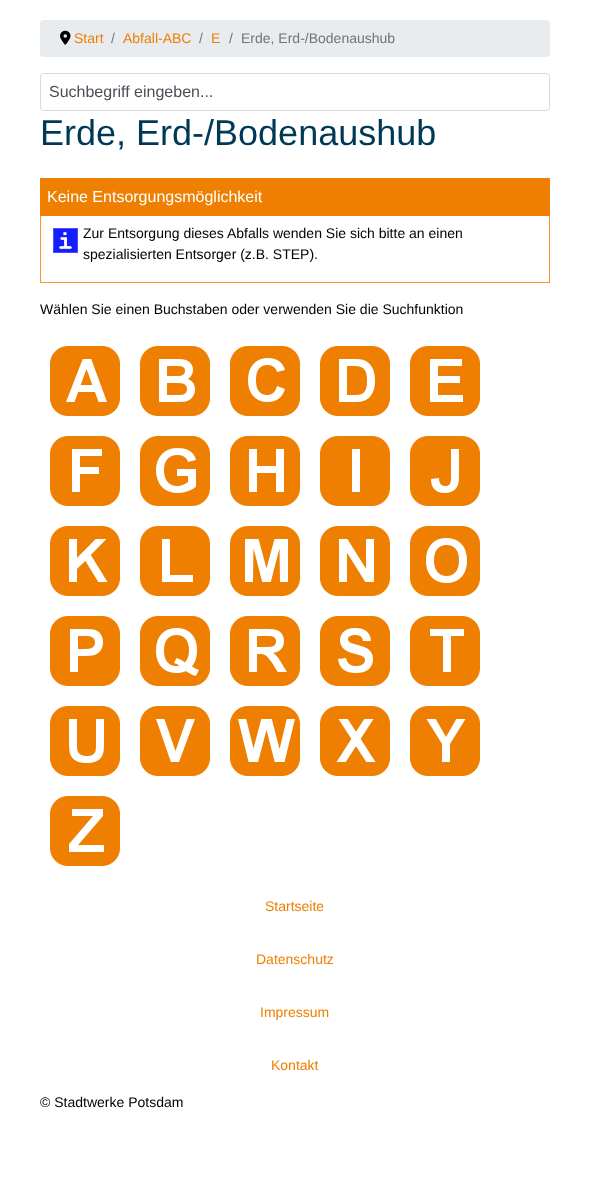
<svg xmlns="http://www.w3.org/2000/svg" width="590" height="1202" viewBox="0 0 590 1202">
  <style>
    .t1 { font: 14px Liberation Sans; fill: #ee7f00; }
    .t2 { font: 14px Liberation Sans; fill: #6c757d; }
    .t3 { font: 16px Liberation Sans; fill: #495057; }
    .t4 { font: 36px Liberation Sans; fill: #003958; }
    .t5 { font: 16px Liberation Sans; fill: #fff; }
    .t6 { font: 14px Liberation Sans; fill: #000; }
  </style>
  <rect width="100%" height="100%" fill="#fff"/>
  <rect x="40" y="20" width="510" height="37" rx="4" fill="#e9ecef"/>
  <image x="60" y="30" width="11" height="15" href="images/1.png"/>
  <text x="74" y="43" class="t1">Start</text>
  <text x="111" y="43" class="t2">/</text>
  <text x="123" y="43" class="t1">Abfall-ABC</text>
  <text x="199" y="43" class="t2">/</text>
  <text x="211" y="43" class="t1">E</text>
  <text x="229" y="43" class="t2">/</text>
  <text x="241" y="43" class="t2">Erde, Erd-/Bodenaushub</text>
  <rect x="40.5" y="73.5" width="509" height="37" rx="3.5" fill="none" stroke="#d9d9d9"/>
  <text x="49" y="97" class="t3">Suchbegriff eingeben...</text>
  <text x="40" y="145" class="t4">Erde, Erd-/Bodenaushub</text>
  <rect x="40" y="178" width="510" height="38" fill="#ee7f00"/>
  <text x="47" y="202" class="t5">Keine Entsorgungsmöglichkeit</text>
  <rect x="549" y="216" width="1" height="67" fill="#ff942c"/>
  <rect x="40" y="282" width="510" height="1" fill="#ff942c"/>
  <rect x="40" y="216" width="1" height="67" fill="#ff942c"/>
  <image x="53" y="228" width="25" height="25" href="images/2.png"/>
  <text x="83" y="238" class="t6">Zur Entsorgung dieses Abfalls wenden Sie sich bitte an einen</text>
  <text x="83" y="259" class="t6">spezialisierten Entsorger (z.B. STEP).</text>
  <text x="40" y="314" class="t6">Wählen Sie einen Buchstaben oder verwenden Sie die Suchfunktion</text>
  <image x="50" y="346" width="70" height="70" href="images/3.png"/>
  <image x="140" y="346" width="70" height="70" href="images/4.png"/>
  <image x="230" y="346" width="70" height="70" href="images/5.png"/>
  <image x="320" y="346" width="70" height="70" href="images/6.png"/>
  <image x="410" y="346" width="70" height="70" href="images/7.png"/>
  <image x="50" y="436" width="70" height="70" href="images/8.png"/>
  <image x="140" y="436" width="70" height="70" href="images/9.png"/>
  <image x="230" y="436" width="70" height="70" href="images/10.png"/>
  <image x="320" y="436" width="70" height="70" href="images/11.png"/>
  <image x="410" y="436" width="70" height="70" href="images/12.png"/>
  <image x="50" y="526" width="70" height="70" href="images/13.png"/>
  <image x="140" y="526" width="70" height="70" href="images/14.png"/>
  <image x="230" y="526" width="70" height="70" href="images/15.png"/>
  <image x="320" y="526" width="70" height="70" href="images/16.png"/>
  <image x="410" y="526" width="70" height="70" href="images/17.png"/>
  <image x="50" y="616" width="70" height="70" href="images/18.png"/>
  <image x="140" y="616" width="70" height="70" href="images/19.png"/>
  <image x="230" y="616" width="70" height="70" href="images/20.png"/>
  <image x="320" y="616" width="70" height="70" href="images/21.png"/>
  <image x="410" y="616" width="70" height="70" href="images/22.png"/>
  <image x="50" y="706" width="70" height="70" href="images/23.png"/>
  <image x="140" y="706" width="70" height="70" href="images/24.png"/>
  <image x="230" y="706" width="70" height="70" href="images/25.png"/>
  <image x="320" y="706" width="70" height="70" href="images/26.png"/>
  <image x="410" y="706" width="70" height="70" href="images/27.png"/>
  <image x="50" y="796" width="70" height="70" href="images/28.png"/>
  <text x="265" y="911" class="t1">Startseite</text>
  <text x="256" y="964" class="t1">Datenschutz</text>
  <text x="260" y="1017" class="t1">Impressum</text>
  <text x="271" y="1070" class="t1">Kontakt</text>
  <text x="40" y="1107" class="t6">© Stadtwerke Potsdam</text>
</svg>
